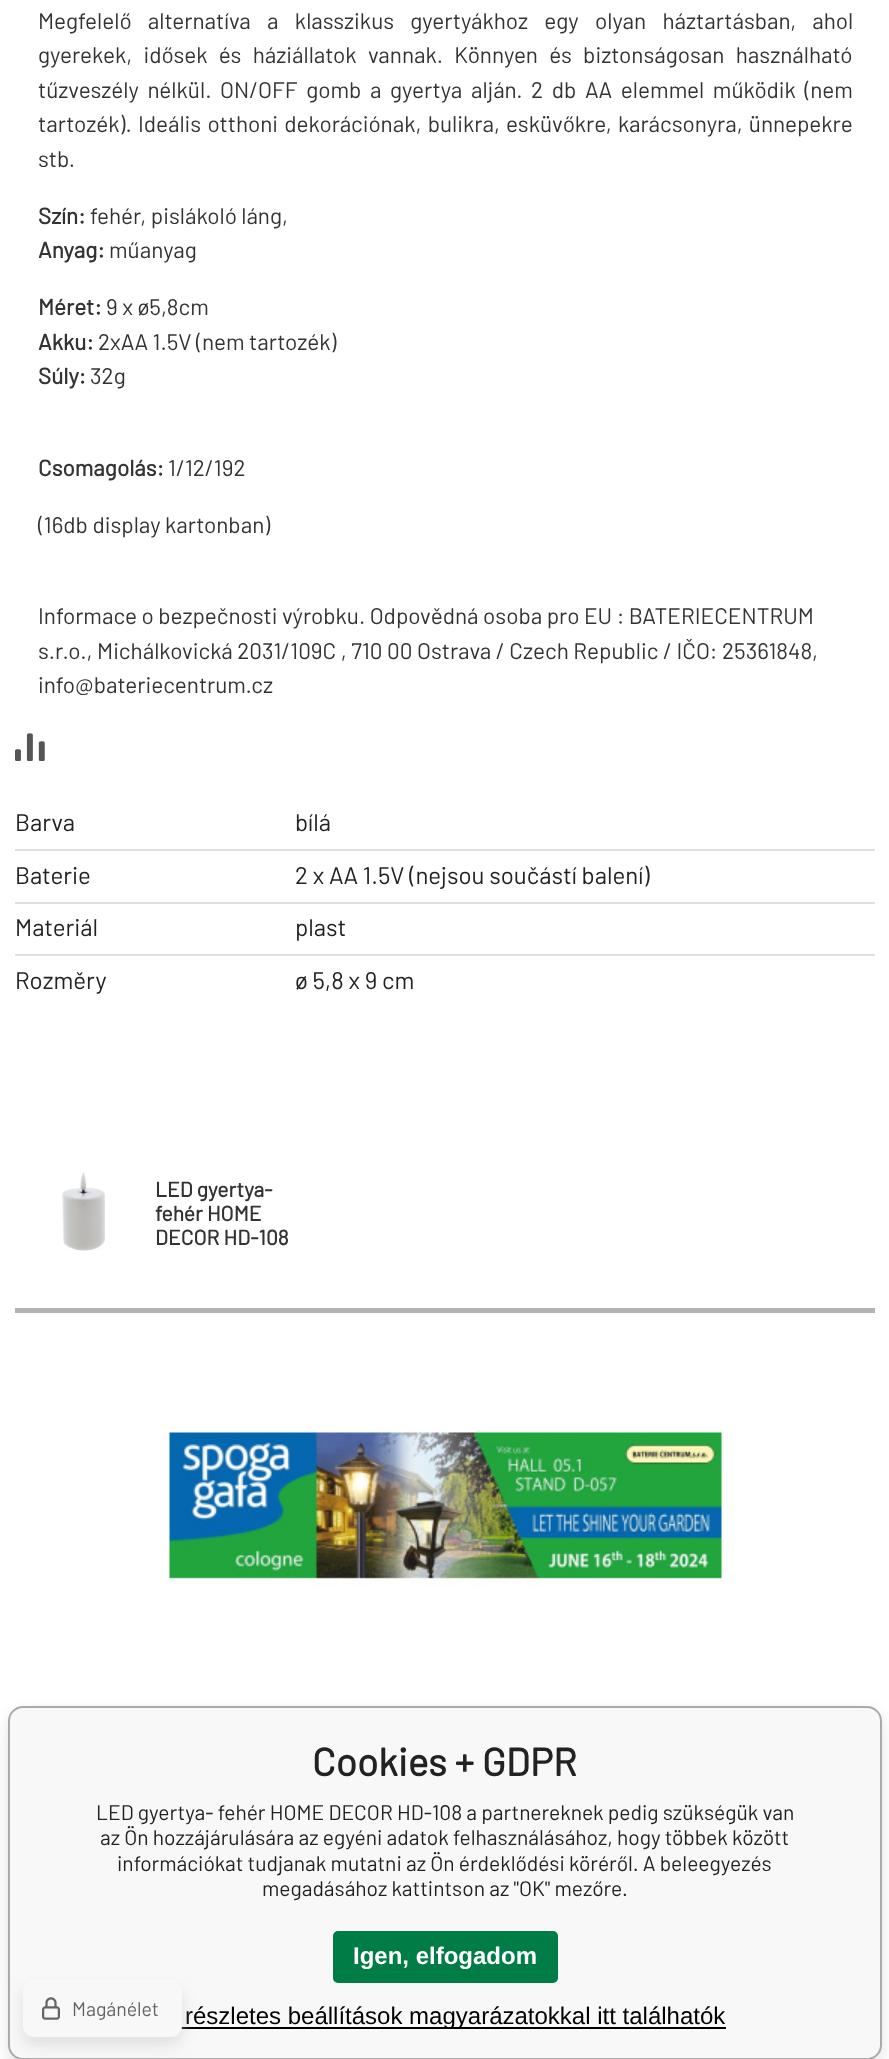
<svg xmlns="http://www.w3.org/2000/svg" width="889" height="2059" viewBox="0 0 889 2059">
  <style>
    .t1 { font: 22.5px Barlow; fill: #333; }
    .t2 { font: bold 22.5px Barlow; fill: #333; }
    .t3 { font: 24px Barlow; fill: #222; }
    .t4 { font: bold 21px Barlow; fill: #333; }
    .t5 { font: bold 39px Barlow; fill: #222; }
    .t6 { font: 21px Barlow; fill: #222; }
    .t7 { font: bold 24px Liberation Sans; fill: #fff; }
    .t8 { font: 24px Liberation Sans; fill: #000; }
    .t9 { font: 19.5px Barlow; fill: #646464; }
  </style>
  <rect width="100%" height="100%" fill="#fff"/>
  <text x="38" y="29" word-spacing="11.75" class="t1">Megfelelő alternatíva a klasszikus gyertyákhoz egy olyan háztartásban, ahol</text>
  <text x="38" y="63" word-spacing="6.75" class="t1">gyerekek, idősek és háziállatok vannak. Könnyen és biztonságosan használható</text>
  <text x="38" y="98" word-spacing="4.1" class="t1">tűzveszély nélkül. ON/OFF gomb a gyertya alján. 2 db AA elemmel működik (nem</text>
  <text x="38" y="132" word-spacing="1.75" class="t1">tartozék). Ideális otthoni dekorációnak, bulikra, esküvőkre, karácsonyra, ünnepekre</text>
  <text x="38" y="167" class="t1">stb.</text>
  <text x="38" y="224" class="t2">Szín:</text>
  <text x="90" y="224" class="t1">fehér, pislákoló láng,</text>
  <text x="38" y="258" class="t2">Anyag:</text>
  <text x="109" y="258" class="t1">műanyag</text>
  <text x="38" y="315" class="t2">Méret:</text>
  <text x="106" y="315" class="t1">9 x ø5,8cm</text>
  <text x="38" y="350" class="t2">Akku:</text>
  <text x="98" y="350" class="t1">2xAA 1.5V (nem tartozék)</text>
  <text x="38" y="384" class="t2">Súly:</text>
  <text x="90" y="384" class="t1">32g</text>
  <text x="38" y="476" class="t2">Csomagolás:</text>
  <text x="168" y="476" class="t1">1/12/192</text>
  <text x="38" y="533" class="t1">(16db display kartonban)</text>
  <text x="38" y="624" class="t1">Informace o bezpečnosti výrobku. Odpovědná osoba pro EU : BATERIECENTRUM</text>
  <text x="38" y="659" class="t1">s.r.o., Michálkovická 2031/109C , 710 00 Ostrava / Czech Republic / IČO: 25361848,</text>
  <text x="38" y="693" class="t1">info@bateriecentrum.cz</text>
  <image x="15" y="733" width="30" height="28" href="images/1.png"/>
  <rect x="15" y="849" width="860" height="2" fill="#e0e0e0"/>
  <text x="15" y="831" class="t3">Barva</text>
  <text x="295" y="831" class="t3">bílá</text>
  <rect x="15" y="902" width="860" height="2" fill="#e0e0e0"/>
  <text x="15" y="884" class="t3">Baterie</text>
  <text x="295" y="884" class="t3">2 x AA 1.5V (nejsou součástí balení)</text>
  <rect x="15" y="954" width="860" height="2" fill="#e0e0e0"/>
  <text x="15" y="936" class="t3">Materiál</text>
  <text x="295" y="936" class="t3">plast</text>
  <text x="15" y="989" class="t3">Rozměry</text>
  <text x="295" y="989" class="t3">ø 5,8 x 9 cm</text>
  <image x="62" y="1172" width="43" height="79" href="images/2.png"/>
  <text x="155" y="1197" class="t4">LED gyertya-</text>
  <text x="155" y="1221" class="t4">fehér HOME</text>
  <text x="155" y="1245" class="t4">DECOR HD-108</text>
  <rect x="15" y="1308" width="860" height="5" fill="#b3b3b3"/>
  <image x="169" y="1431" width="553" height="156" href="images/3.png"/>
  <rect x="8" y="1713" width="874" height="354" rx="15" fill="#c8c8c880" filter="blur(7.5px)"/>
  <rect x="9" y="1707" width="872" height="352" rx="14" fill="#f8f8f8" stroke="#aaa" stroke-width="2"/>
  <text x="312" y="1776" class="t5">Cookies + GDPR</text>
  <text x="96" y="1820" class="t6">LED gyertya- fehér HOME DECOR HD-108 a partnereknek pedig szükségük van</text>
  <text x="100" y="1845" class="t6">az Ön hozzájárulására az egyéni adatok felhasználásához, hogy többek között</text>
  <text x="117" y="1871" class="t6">információkat tudjanak mutatni az Ön érdeklődési köréről. A beleegyezés</text>
  <text x="262" y="1896" class="t6">megadásához kattintson az "OK" mezőre.</text>
  <rect x="334" y="1932" width="223" height="50" rx="4" fill="#007c47" stroke="#007c47" stroke-width="2"/>
  <text x="353" y="1964" class="t7">Igen, elfogadom</text>
  <rect x="181" y="2027" width="545" height="2" fill="#000"/>
  <text x="185" y="2024" class="t8">részletes beállítások magyarázatokkal itt találhatók</text>
  <rect x="23" y="1988" width="159" height="57" rx="11" fill="#c8c8c880" filter="blur(7.5px)"/>
  <rect x="23" y="1980" width="159" height="57" rx="11" fill="#f8f8f8"/>
  <image x="42" y="1997" width="18" height="23" href="images/4.png"/>
  <text x="72" y="2016" class="t9">Magánélet</text>
</svg>
